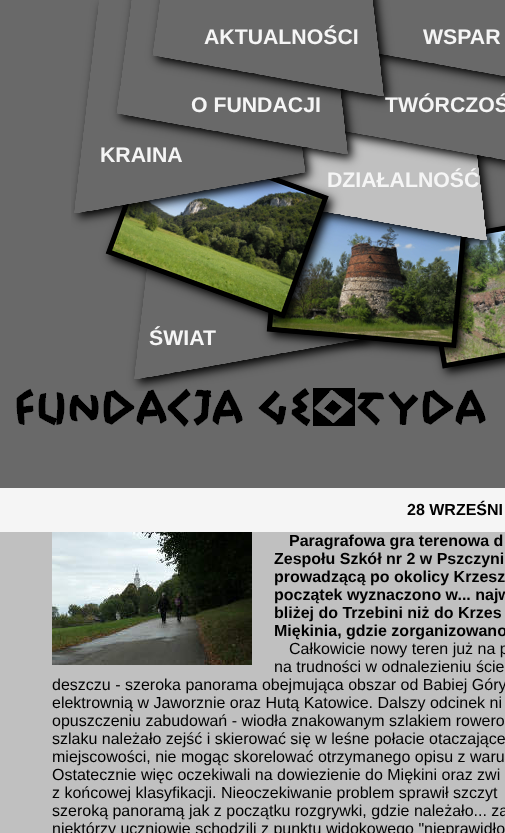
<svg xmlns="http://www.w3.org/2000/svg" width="505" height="833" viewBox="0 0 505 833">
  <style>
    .t1 { font: bold 21.25px Liberation Sans; fill: #f5f5f5; }
    .t2 { font: bold 16px Liberation Sans; fill: #000; }
    .t3 { font: 16px Liberation Sans; fill: #000; }
  </style>
  <rect width="100%" height="100%" fill="#c0c0c0"/>
  <rect x="0" y="0" width="505" height="488" fill="#696969"/>
  <image x="71" y="0" width="434" height="391" href="images/2.png"/>
  <text x="204" y="44" class="t1">AKTUALNOŚCI</text>
  <text x="423" y="44" class="t1">WSPAR</text>
  <text x="191" y="112" class="t1">O FUNDACJI</text>
  <text x="385" y="112" class="t1">TWÓRCZOŚ</text>
  <text x="100" y="162" class="t1">KRAINA</text>
  <text x="327" y="187" class="t1">DZIAŁALNOŚĆ</text>
  <text x="149" y="345" class="t1">ŚWIAT</text>
  <image x="16" y="388" width="470" height="39" href="images/1.png"/>
  <rect x="0" y="488" width="505" height="44" fill="#f5f5f5"/>
  <text x="407" y="515" class="t2">28 WRZEŚNI</text>
  <image x="52" y="532" width="200" height="133" href="images/3.png"/>
  <text x="289" y="546" class="t2">Paragrafowa gra terenowa d</text>
  <text x="274" y="564" class="t2">Zespołu Szkół nr 2 w Pszczyni</text>
  <text x="274" y="582" class="t2">prowadzącą po okolicy Krzesz</text>
  <text x="274" y="600" class="t2">początek wyznaczono w... najw</text>
  <text x="274" y="618" class="t2">bliżej do Trzebini niż do Krzes</text>
  <text x="274" y="636" class="t2">Miękinia, gdzie zorganizowano</text>
  <text x="289" y="654" class="t3">Całkowicie nowy teren już na p</text>
  <text x="274" y="672" class="t3">na trudności w odnalezieniu ście</text>
  <text x="52" y="690" class="t3">deszczu - szeroka panorama obejmująca obszar od Babiej Góry</text>
  <text x="52" y="708" class="t3">elektrownią w Jaworznie oraz Hutą Katowice. Dalszy odcinek ni</text>
  <text x="52" y="726" class="t3">opuszczeniu zabudowań - wiodła znakowanym szlakiem rowero</text>
  <text x="52" y="744" class="t3">szlaku należało zejść i skierować się w leśne połacie otaczające</text>
  <text x="52" y="762" class="t3">miejscowości, nie mogąc skorelować otrzymanego opisu z waru</text>
  <text x="52" y="780" class="t3">Ostatecznie więc oczekiwali na dowiezienie do Miękini oraz zwi</text>
  <text x="52" y="798" class="t3">z końcowej klasyfikacji. Nieoczekiwanie problem sprawił szczyt</text>
  <text x="52" y="816" class="t3">szeroką panoramą jak z początku rozgrywki, gdzie należało... za</text>
  <text x="52" y="834" class="t3">niektórzy uczniowie schodzili z punktu widokowego "nieprawidło</text>
</svg>
